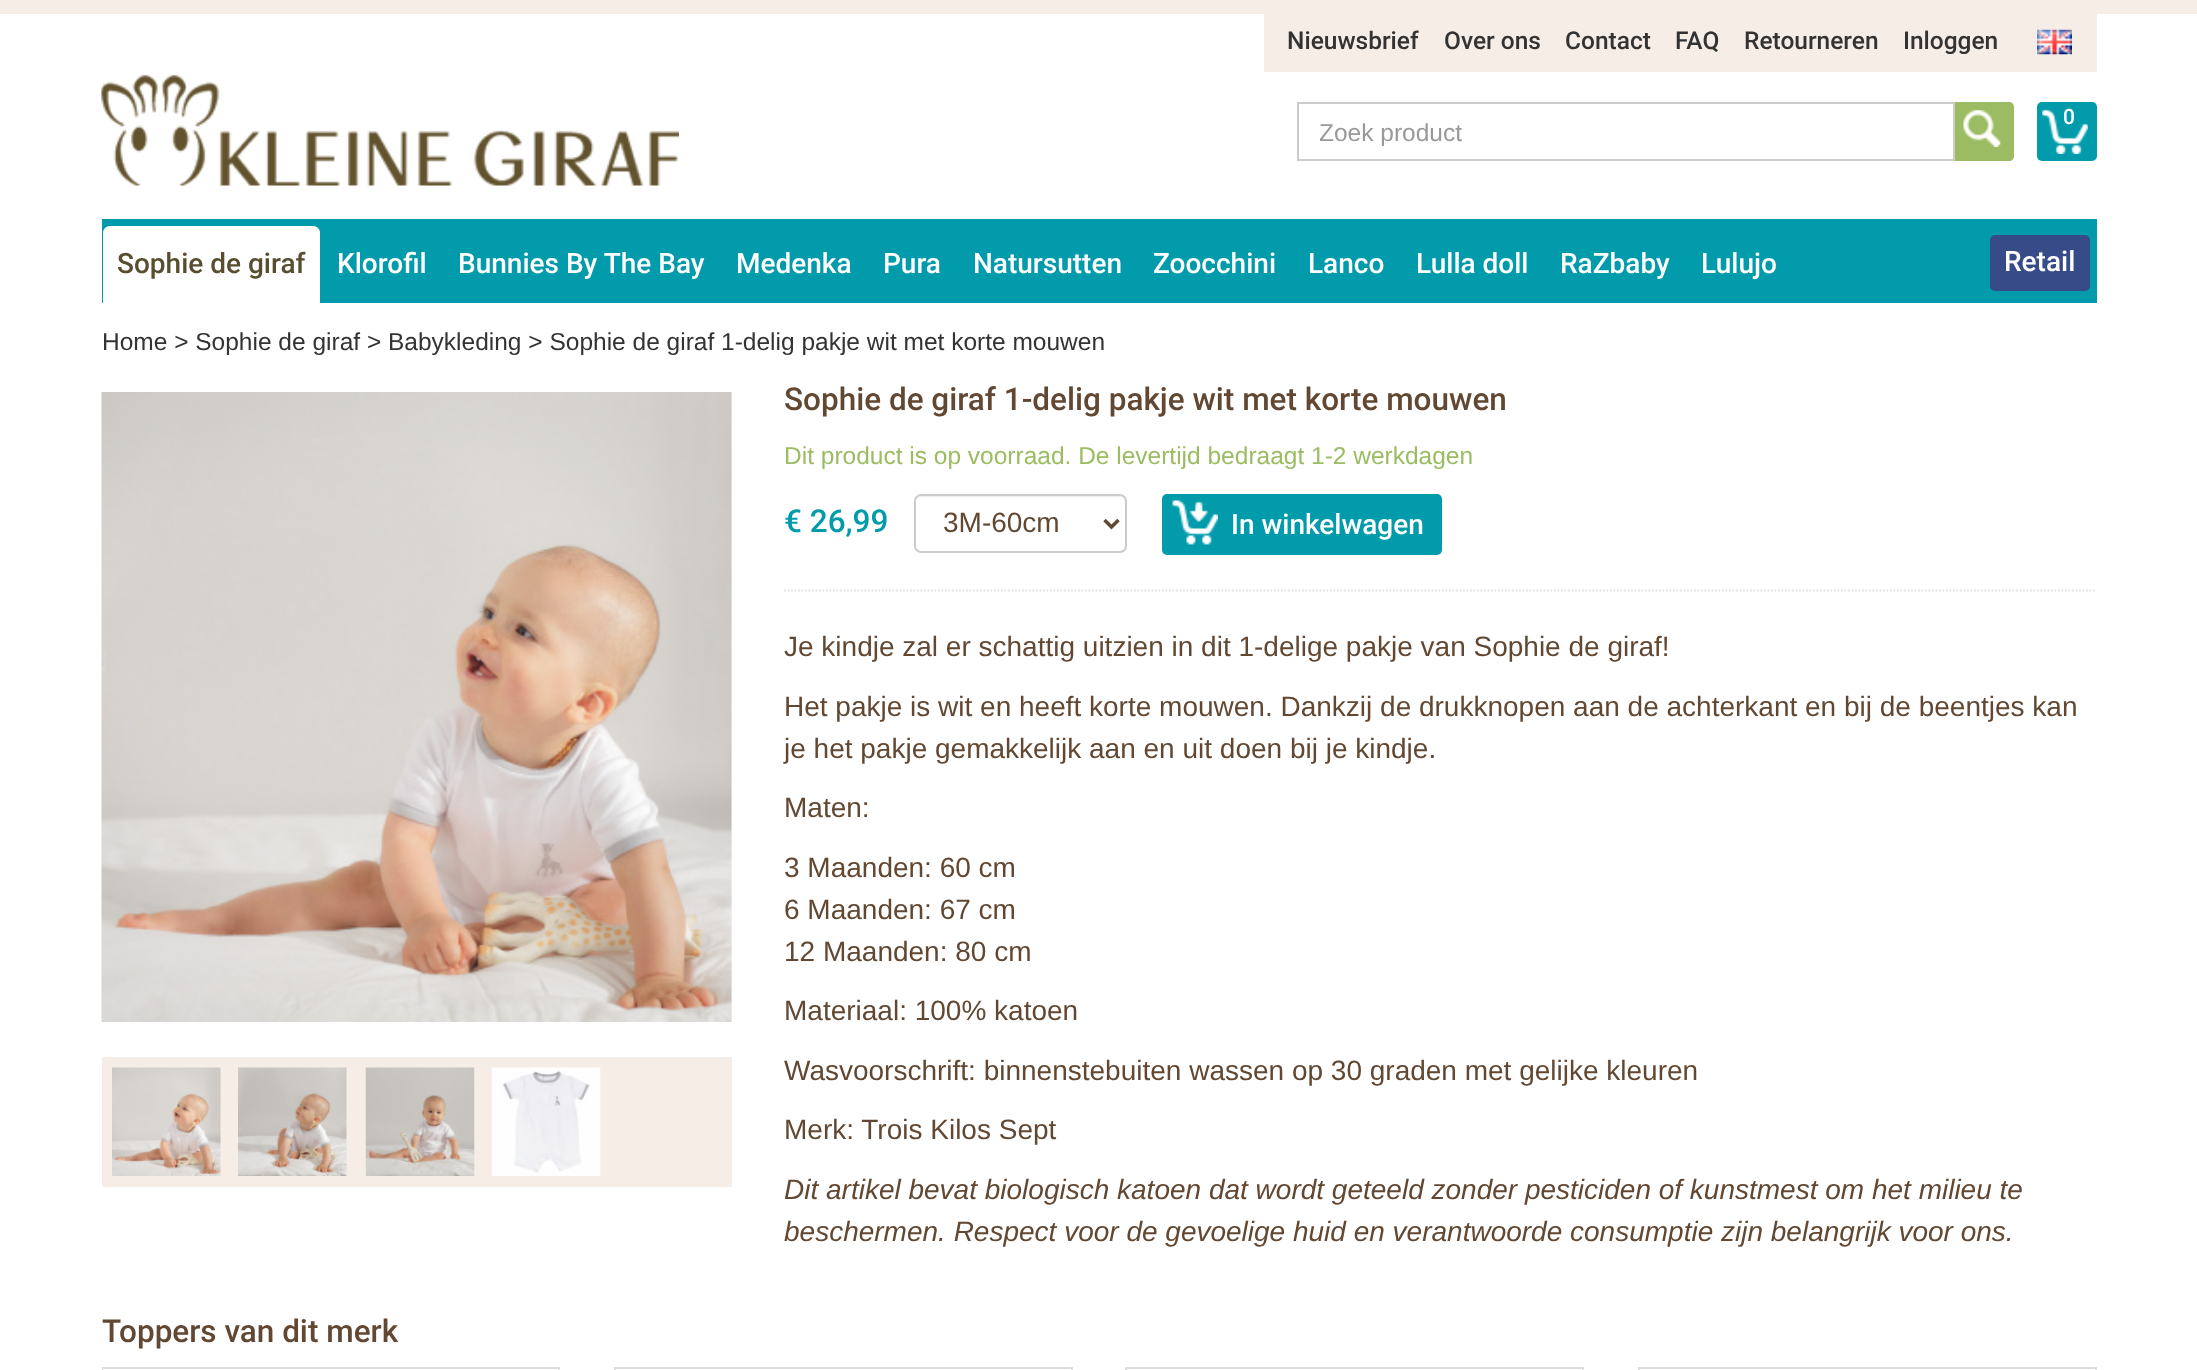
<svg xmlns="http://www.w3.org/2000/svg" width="2197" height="1370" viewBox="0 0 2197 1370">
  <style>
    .t1 { font: 500 24.5px Roboto; fill: #333; }
    .t2 { font: 500 21px Roboto; fill: #fff; }
    .t3 { font: 24.5px Liberation Sans; fill: #999; }
    .t4 { font: 500 28px Roboto; fill: #584e2f; }
    .t5 { font: 500 28px Roboto; fill: #fff; }
    .t6 { font: 24.5px Liberation Sans; fill: #333; }
    .t7 { font: 500 31.5px Roboto; fill: #624832; }
    .t8 { font: 24.5px Liberation Sans; fill: #9bbc62; }
    .t9 { font: 500 31.5px Roboto; fill: #019bab; }
    .t10 { font: 28px Liberation Sans; fill: #624832; }
    .t11 { font: italic 28px Liberation Sans; fill: #624832; }
  </style>
  <defs>
    <clipPath id="clip1"><rect x="1320" y="119" width="612" height="28"/></clipPath>
  </defs>
  <rect width="100%" height="100%" fill="#fff"/>
  <rect x="0" y="0" width="2197" height="14" fill="#f6ede6"/>
  <rect x="1264" y="14" width="833" height="58" fill="#f6ede6"/>
  <text x="1287" y="49" class="t1">Nieuwsbrief</text>
  <text x="1444" y="49" class="t1">Over ons</text>
  <text x="1565" y="49" class="t1">Contact</text>
  <text x="1675" y="49" class="t1">FAQ</text>
  <text x="1744" y="49" class="t1">Retourneren</text>
  <text x="1903" y="49" class="t1">Inloggen</text>
  <image x="2037" y="29" width="35" height="26" href="images/1.png"/>
  <image x="101" y="74" width="578" height="112" href="images/2.png"/>
  <rect x="2037" y="102" width="60" height="59" rx="5" fill="#019bab"/>
  <image x="2042" y="109" width="46" height="45" href="images/3.png"/>
  <text x="2063" y="124" class="t2">0</text>
  <path d="M1953 102H2009C2012 102 2014 104 2014 107V156C2014 159 2012 161 2009 161H1953Z" fill="#9bbc62"/>
  <rect x="1298" y="103" width="656" height="57" fill="none" stroke="#ccc" stroke-width="2"/>
  <g clip-path="url(#clip1)">
    <text x="1319" y="141" class="t3">Zoek product</text>
  </g>
  <image x="1963" y="110" width="38" height="37" href="images/4.png"/>
  <rect x="102" y="219" width="1995" height="84" fill="#029bab"/>
  <path d="M110 226H313C317 226 320 229 320 233V303H103V233C103 229 106 226 110 226Z" fill="#fff"/>
  <text x="117" y="273" class="t4">Sophie de giraf</text>
  <text x="337" y="273" class="t5">Klorofil</text>
  <text x="458" y="273" class="t5">Bunnies By The Bay</text>
  <text x="736" y="273" class="t5">Medenka</text>
  <text x="883" y="273" class="t5">Pura</text>
  <text x="973" y="273" class="t5">Natursutten</text>
  <text x="1153" y="273" class="t5">Zoocchini</text>
  <text x="1308" y="273" class="t5">Lanco</text>
  <text x="1416" y="273" class="t5">Lulla doll</text>
  <text x="1560" y="273" class="t5">RaZbaby</text>
  <text x="1701" y="273" class="t5">Lulujo</text>
  <rect x="1990" y="235" width="100" height="56" rx="5" fill="#374b88"/>
  <text x="2004" y="271" class="t5">Retail</text>
  <text x="102" y="350" class="t6">Home &gt; Sophie de giraf &gt; Babykleding &gt; Sophie de giraf 1-delig pakje wit met korte mouwen</text>
  <rect x="731" y="392" width="1" height="630" fill="#f2f2f2"/>
  <image x="101" y="392" width="631" height="630" href="images/5.png"/>
  <rect x="102" y="1057" width="630" height="130" fill="#f6ede6"/>
  <image x="112" y="1067" width="109" height="109" href="images/6.png"/>
  <image x="238" y="1067" width="109" height="109" href="images/7.png"/>
  <image x="365" y="1067" width="110" height="109" href="images/8.png"/>
  <image x="491" y="1067" width="110" height="109" href="images/9.png"/>
  <text x="784" y="410" class="t7">Sophie de giraf 1-delig pakje wit met korte mouwen</text>
  <text x="784" y="464" class="t8">Dit product is op voorraad. De levertijd bedraagt 1-2 werkdagen</text>
  <text x="784" y="532" class="t9">€ 26,99</text>
  <path d="M920 497H1120C1123 497 1125 499 1125 502V500C1125 497 1123 495 1120 495H920C917 495 915 497 915 500V502C915 499 918 497 920 497Z" fill="#ececec"/>
  <rect x="915" y="495" width="211" height="57" rx="6" fill="none" stroke="#ccc" stroke-width="2"/>
  <path d="M1104.5 520L1111.5 527L1118.5 520" fill="none" stroke="#624832" stroke-width="3.5"/>
  <text x="943" y="532" class="t10">3M-60cm</text>
  <rect x="1162" y="494" width="280" height="61" rx="5" fill="#019bab"/>
  <image x="1172" y="500" width="46" height="45" href="images/10.png"/>
  <text x="1231" y="534" class="t5">In winkelwagen</text>
  <path d="M784 590.5H2096.5" fill="none" stroke="#e5e0e0" stroke-width="1.8" stroke-dasharray="1.75 1.75"/>
  <text x="784" y="656" class="t10">Je kindje zal er schattig uitzien in dit 1-delige pakje van Sophie de giraf!</text>
  <text x="784" y="716" class="t10">Het pakje is wit en heeft korte mouwen. Dankzij de drukknopen aan de achterkant en bij de beentjes kan</text>
  <text x="784" y="758" class="t10">je het pakje gemakkelijk aan en uit doen bij je kindje.</text>
  <text x="784" y="817" class="t10">Maten:</text>
  <text x="784" y="877" class="t10">3 Maanden: 60 cm</text>
  <text x="784" y="919" class="t10">6 Maanden: 67 cm</text>
  <text x="784" y="961" class="t10">12 Maanden: 80 cm</text>
  <text x="784" y="1020" class="t10">Materiaal: 100% katoen</text>
  <text x="784" y="1080" class="t10">Wasvoorschrift: binnenstebuiten wassen op 30 graden met gelijke kleuren</text>
  <text x="784" y="1139" class="t10">Merk: Trois Kilos Sept</text>
  <text x="784" y="1199" class="t11">Dit artikel bevat biologisch katoen dat wordt geteeld zonder pesticiden of kunstmest om het milieu te</text>
  <text x="784" y="1241" class="t11">beschermen. Respect voor de gevoelige huid en verantwoorde consumptie zijn belangrijk voor ons.</text>
  <text x="102" y="1342" class="t7">Toppers van dit merk</text>
  <rect x="103" y="1368" width="456" height="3" fill="none" stroke="#e1dbdb" stroke-width="2"/>
  <rect x="103" y="1369" width="1" height="1" fill="#fff"/>
  <rect x="615" y="1368" width="457" height="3" fill="none" stroke="#e1dbdb" stroke-width="2"/>
  <rect x="1126" y="1368" width="457" height="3" fill="none" stroke="#e1dbdb" stroke-width="2"/>
  <rect x="1639" y="1368" width="457" height="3" fill="none" stroke="#e1dbdb" stroke-width="2"/>
</svg>
